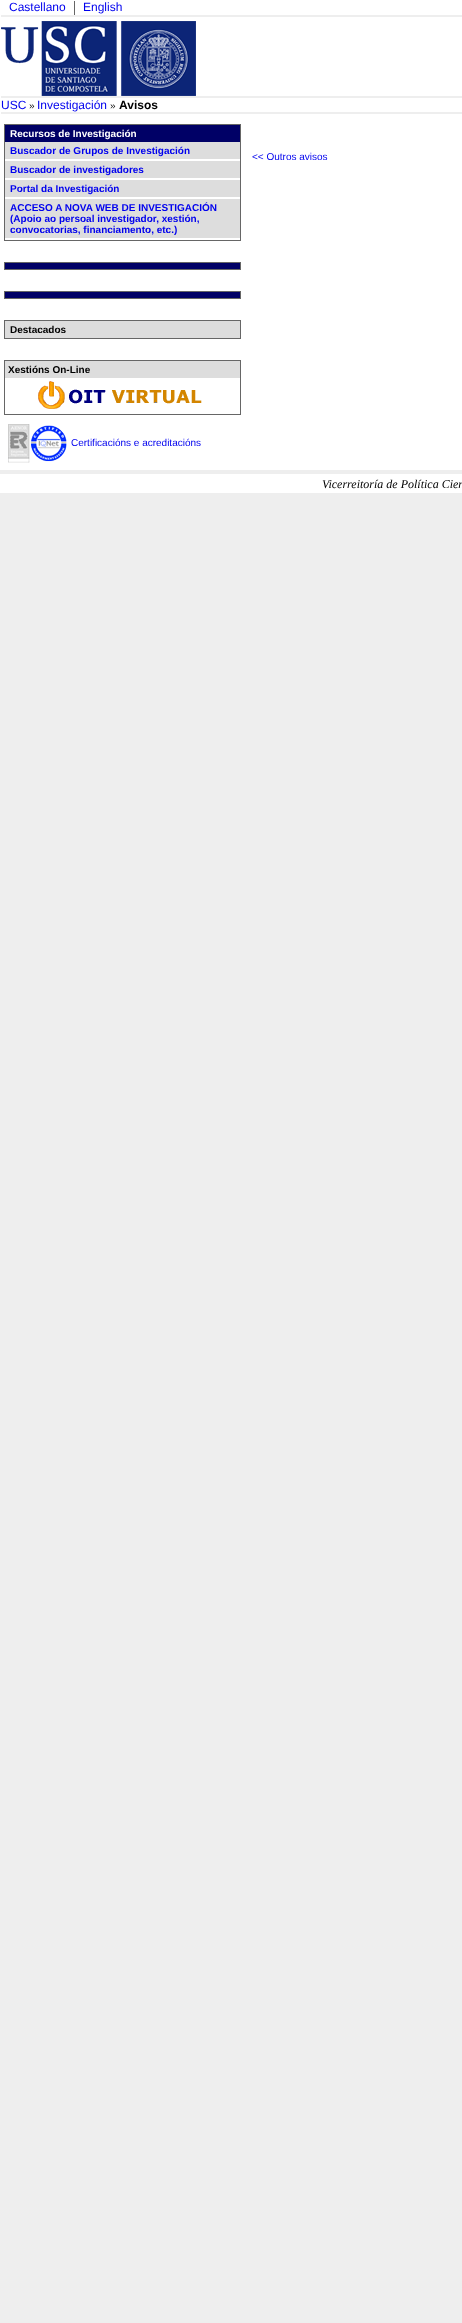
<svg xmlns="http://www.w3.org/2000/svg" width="462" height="2323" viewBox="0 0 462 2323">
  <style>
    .t1 { font: 12px Liberation Sans; fill: #00e; }
    .t2 { font: 10px Liberation Sans; fill: #000; }
    .t3 { font: bold 12px Liberation Sans; fill: #000; }
    .t4 { font: bold 10px Liberation Sans; fill: #fff; }
    .t5 { font: bold 10px Liberation Sans; fill: #00e; }
    .t6 { font: bold 10px Liberation Sans; fill: #000; }
    .t7 { font: 10px Liberation Sans; fill: #00e; }
    .t8 { font: italic 12px Liberation Serif; fill: #000; }
  </style>
  <rect width="100%" height="100%" fill="#eee"/>
  <rect x="0" y="0" width="462" height="493" fill="#fff"/>
  <text x="9" y="11" class="t1">Castellano</text>
  <rect x="74" y="1" width="1" height="14" fill="#666"/>
  <text x="83" y="11" class="t1">English</text>
  <rect x="1" y="15" width="461" height="2" fill="#eee"/>
  <image x="1" y="21" width="195" height="75" href="images/1.png"/>
  <rect x="1" y="96" width="461" height="2" fill="#eee"/>
  <text x="1" y="109" class="t1">USC</text>
  <text x="29" y="109" class="t2">»</text>
  <text x="37" y="109" class="t1">Investigación</text>
  <text x="110" y="109" class="t2">»</text>
  <text x="119" y="109" class="t3">Avisos</text>
  <rect x="1" y="112" width="461" height="2" fill="#eee"/>
  <rect x="4" y="124" width="237" height="1" fill="#666"/>
  <rect x="240" y="124" width="1" height="117" fill="#666"/>
  <rect x="4" y="240" width="237" height="1" fill="#666"/>
  <rect x="4" y="124" width="1" height="117" fill="#666"/>
  <rect x="5" y="125" width="235" height="17" fill="#006"/>
  <text x="10" y="137" class="t4">Recursos de Investigación</text>
  <rect x="5" y="142" width="235" height="17" fill="#ddd"/>
  <text x="10" y="154" class="t5">Buscador de Grupos de Investigación</text>
  <rect x="5" y="161" width="235" height="17" fill="#ddd"/>
  <text x="10" y="173" class="t5">Buscador de investigadores</text>
  <rect x="5" y="180" width="235" height="17" fill="#ddd"/>
  <text x="10" y="192" class="t5">Portal da Investigación</text>
  <rect x="5" y="199" width="235" height="39" fill="#ddd"/>
  <text x="10" y="211" class="t5">ACCESO A NOVA WEB DE INVESTIGACIÓN</text>
  <text x="10" y="222" class="t5">(Apoio ao persoal investigador, xestión,</text>
  <text x="10" y="233" class="t5">convocatorias, financiamento, etc.)</text>
  <rect x="4" y="262" width="237" height="1" fill="#666"/>
  <rect x="240" y="262" width="1" height="8" fill="#666"/>
  <rect x="4" y="269" width="237" height="1" fill="#666"/>
  <rect x="4" y="262" width="1" height="8" fill="#666"/>
  <rect x="5" y="263" width="235" height="6" fill="#006"/>
  <rect x="4" y="291" width="237" height="1" fill="#666"/>
  <rect x="240" y="291" width="1" height="8" fill="#666"/>
  <rect x="4" y="298" width="237" height="1" fill="#666"/>
  <rect x="4" y="291" width="1" height="8" fill="#666"/>
  <rect x="5" y="292" width="235" height="6" fill="#006"/>
  <rect x="4" y="320" width="237" height="1" fill="#666"/>
  <rect x="240" y="320" width="1" height="19" fill="#666"/>
  <rect x="4" y="338" width="237" height="1" fill="#666"/>
  <rect x="4" y="320" width="1" height="19" fill="#666"/>
  <rect x="5" y="321" width="235" height="17" fill="#ddd"/>
  <text x="10" y="333" class="t6">Destacados</text>
  <rect x="4" y="360" width="237" height="1" fill="#666"/>
  <rect x="240" y="360" width="1" height="55" fill="#666"/>
  <rect x="4" y="414" width="237" height="1" fill="#666"/>
  <rect x="4" y="360" width="1" height="55" fill="#666"/>
  <rect x="5" y="361" width="235" height="17" fill="#ddd"/>
  <text x="8" y="373" class="t6">Xestións On-Line</text>
  <image x="38" y="381" width="164" height="28" href="images/2.png"/>
  <image x="8" y="424" width="59" height="39" href="images/3.png"/>
  <text x="71" y="446" class="t7">Certificacións e acreditacións</text>
  <text x="252" y="160" class="t7">&lt;&lt; Outros avisos</text>
  <rect x="0" y="470" width="462" height="4" fill="#eee"/>
  <text x="322" y="488" class="t8">Vicerreitoría de Política Cien</text>
</svg>
